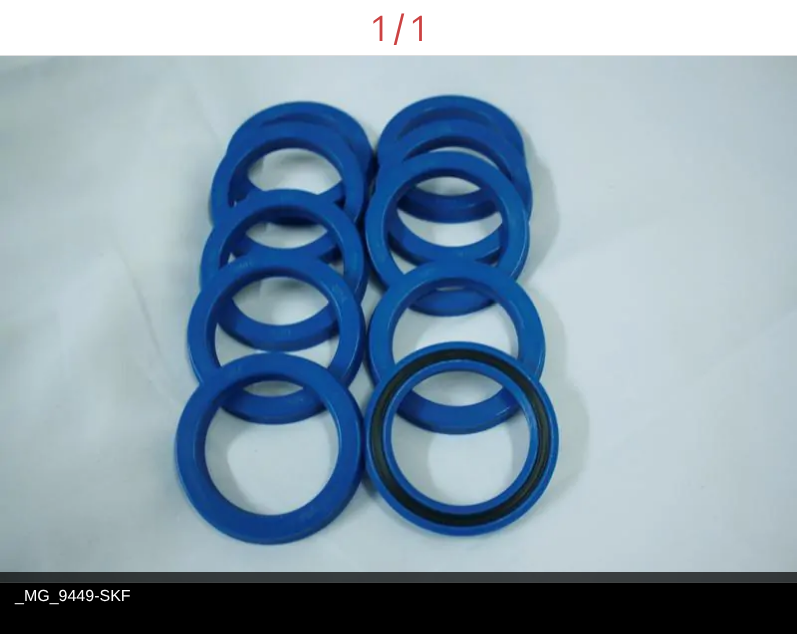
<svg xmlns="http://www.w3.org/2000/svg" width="797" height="634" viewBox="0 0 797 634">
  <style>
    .t1 { font: 34px Encode Sans; fill: #cc4242; }
    .t2 { font: 16px Liberation Sans; fill: #fff; }
  </style>
  <rect width="100%" height="100%" fill="#000"/>
  <rect x="0" y="0" width="797" height="55" fill="#fff"/>
  <rect x="0" y="55" width="797" height="1" fill="#ddd"/>
  <text x="373" y="41" class="t1">1 / 1</text>
  <rect x="0" y="582" width="797" height="1" fill="#f3f3f3"/>
  <image x="0" y="56" width="797" height="527" href="images/1.png"/>
  <rect x="0" y="572" width="797" height="11" fill="#000000b3"/>
  <text x="15" y="601" class="t2">_MG_9449-SKF</text>
</svg>
